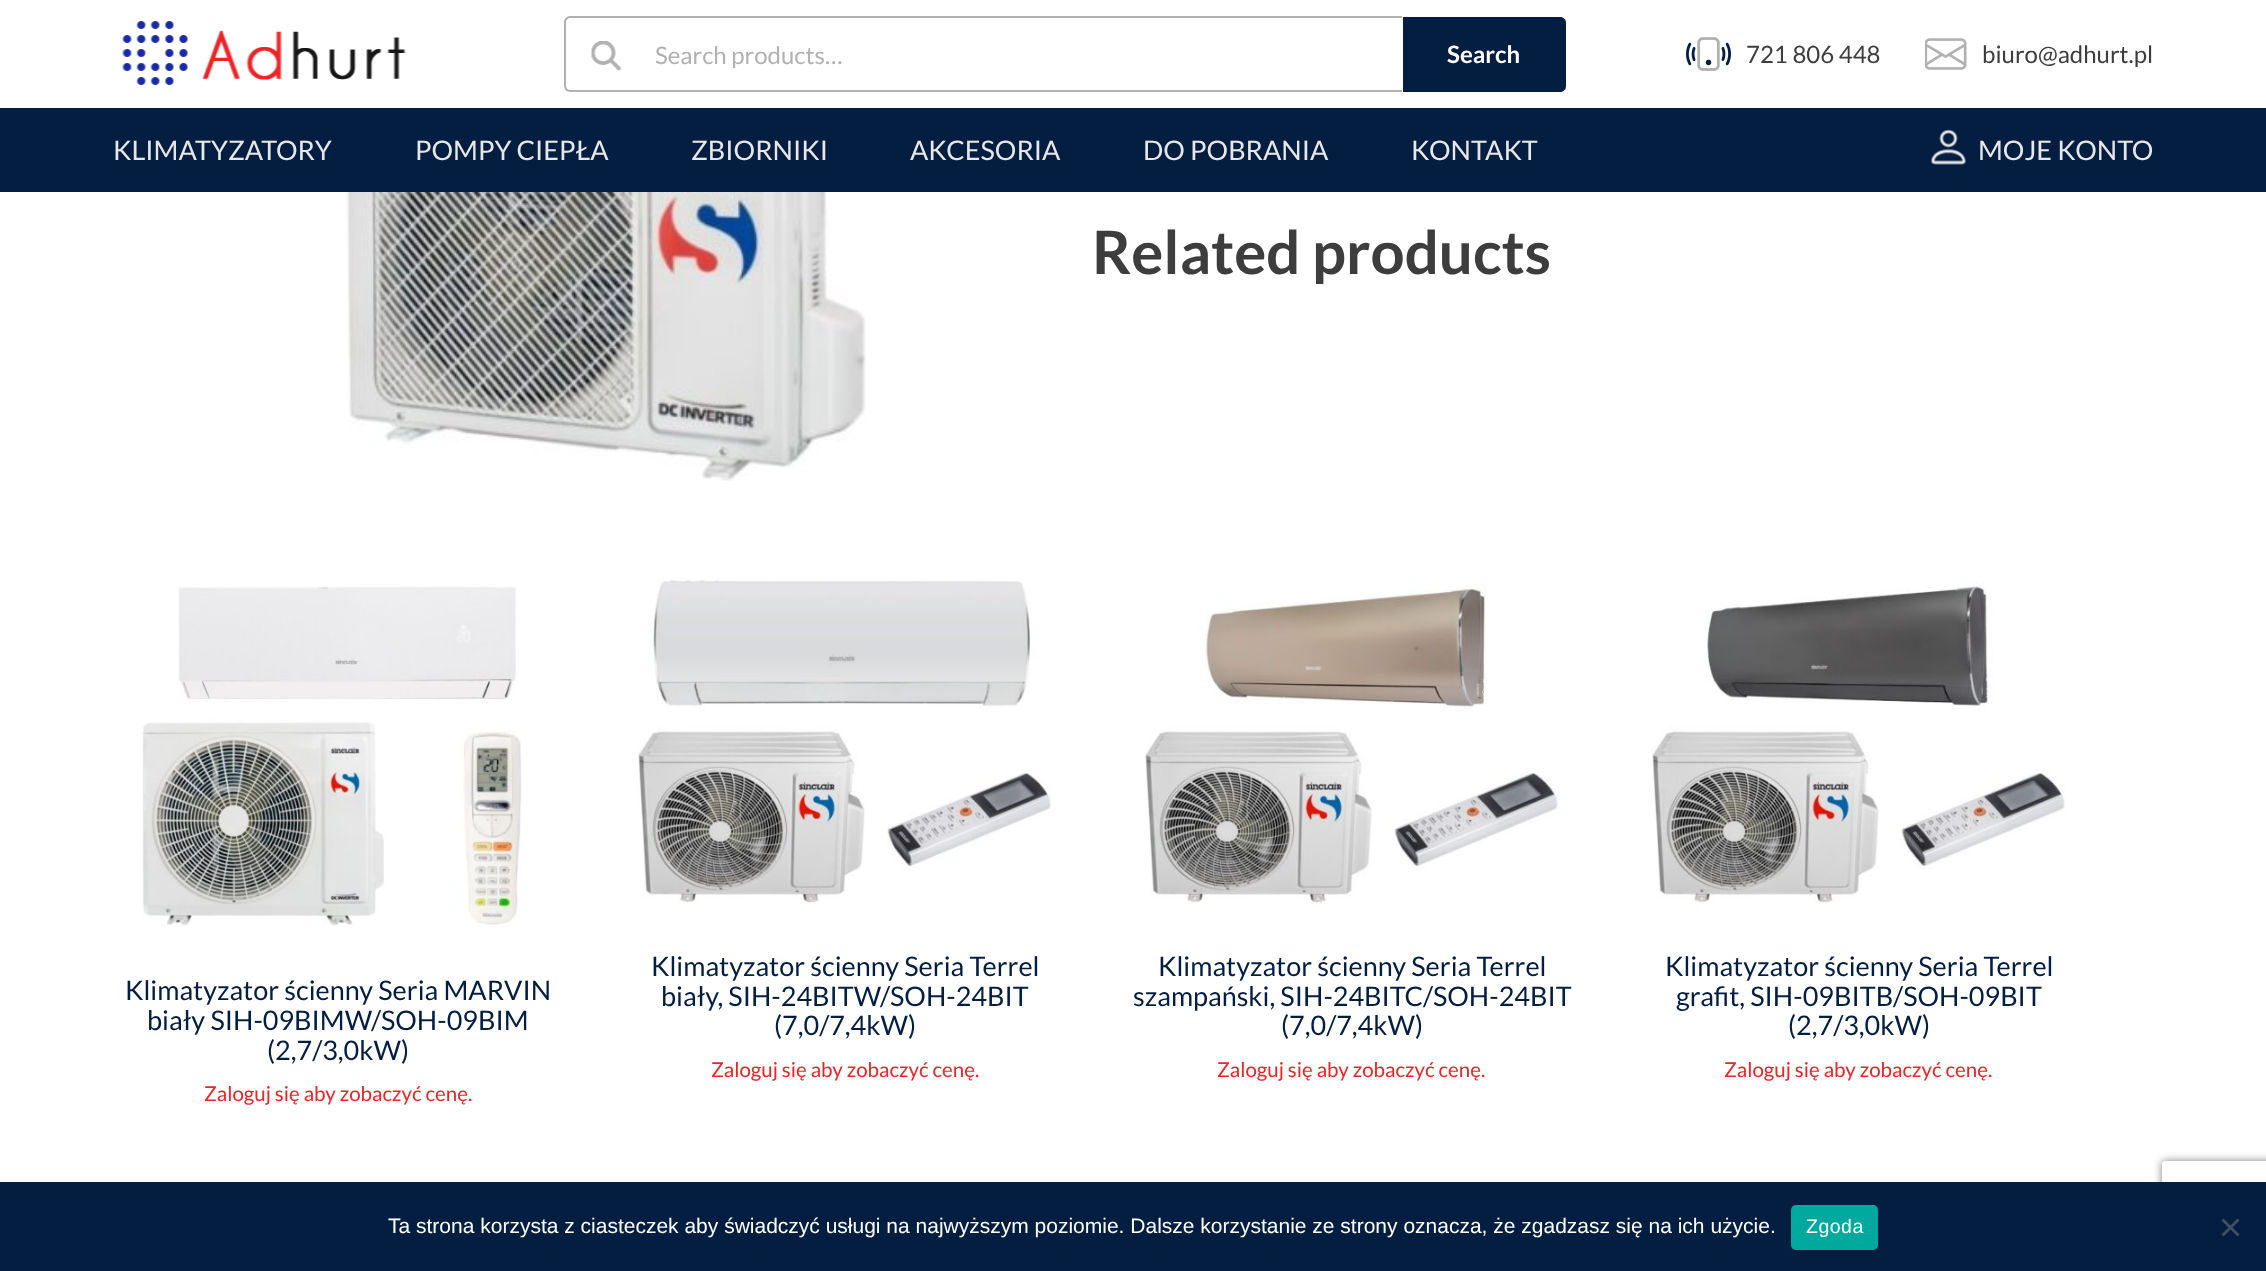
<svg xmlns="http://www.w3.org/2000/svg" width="2266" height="1271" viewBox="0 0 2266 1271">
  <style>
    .t1 { font: 24px Lato; fill: #b1b1b1; }
    .t2 { font: bold 24px Lato; fill: #fff; }
    .t3 { font: 24px Lato; fill: #3d3d3d; }
    .t4 { font: 27px Lato; fill: #e7e7e7; }
    .t5 { font: bold 60px Lato; fill: #3d3d3d; }
    .t6 { font: 27px Lato; fill: #041e42; }
    .t7 { font: 20.5px Lato; fill: #ec2327; }
    .t8 { font: 21px Liberation Sans; fill: #fff; }
    .t9 { font: 19.5px Liberation Sans; letter-spacing: 0.5px; fill: #fff; }
  </style>
  <defs>
    <clipPath id="clip1"><path d="M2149 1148H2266V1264H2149ZM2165 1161H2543C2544.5 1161 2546 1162.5 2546 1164V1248C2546 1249.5 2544.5 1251 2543 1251H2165C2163.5 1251 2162 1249.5 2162 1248V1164C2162 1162.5 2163.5 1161 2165 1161Z" clip-rule="evenodd"/></clipPath>
  </defs>
  <rect width="100%" height="100%" fill="#fff"/>
  <image x="122" y="21" width="284" height="64" href="images/1.png"/>
  <path d="M570 16H1402V92H570C567 92 564 89 564 86V22C564 19 567 16 570 16ZM570 18H1402V90H570C568 90 566 88 566 86V22C566 20 568 18 570 18Z" fill="#b1b1b1" fill-rule="evenodd"/>
  <image x="591" y="41" width="31" height="30" href="images/2.png"/>
  <text x="655" y="64" class="t1">Search products…</text>
  <path d="M1403 17H1560C1563.5 17 1566 19.5 1566 23V86C1566 89.5 1563.5 92 1560 92H1403Z" fill="#041e42"/>
  <text x="1447" y="63" class="t2">Search</text>
  <image x="1686" y="37" width="45" height="34" href="images/3.png"/>
  <text x="1746" y="63" class="t3">721 806 448</text>
  <image x="1925" y="38" width="42" height="32" href="images/4.png"/>
  <text x="1982" y="63" class="t3">biuro@adhurt.pl</text>
  <rect x="0" y="108" width="2266" height="84" fill="#041e42"/>
  <text x="113" y="160" class="t4">KLIMATYZATORY</text>
  <text x="415" y="160" class="t4">POMPY CIEPŁA</text>
  <text x="691" y="160" class="t4">ZBIORNIKI</text>
  <text x="910" y="160" class="t4">AKCESORIA</text>
  <text x="1143" y="160" class="t4">DO POBRANIA</text>
  <text x="1411" y="160" class="t4">KONTAKT</text>
  <image x="1931" y="129" width="35" height="36" href="images/5.png"/>
  <text x="1978" y="160" class="t4">MOJE KONTO</text>
  <image x="345" y="192" width="521" height="289" href="images/6.png"/>
  <text x="1092" y="274" class="t5">Related products</text>
  <image x="142" y="586" width="380" height="341" href="images/7.png"/>
  <text x="125" y="1000" class="t6">Klimatyzator ścienny Seria MARVIN</text>
  <text x="147" y="1030" class="t6">biały SIH-09BIMW/SOH-09BIM</text>
  <text x="267" y="1060" class="t6">(2,7/3,0kW)</text>
  <text x="204" y="1101" class="t7">Zaloguj się aby zobaczyć cenę.</text>
  <image x="636" y="576" width="416" height="329" href="images/8.png"/>
  <text x="651" y="976" class="t6">Klimatyzator ścienny Seria Terrel</text>
  <text x="661" y="1006" class="t6">biały, SIH-24BITW/SOH-24BIT</text>
  <text x="774" y="1035" class="t6">(7,0/7,4kW)</text>
  <text x="711" y="1077" class="t7">Zaloguj się aby zobaczyć cenę.</text>
  <image x="1145" y="588" width="414" height="317" href="images/9.png"/>
  <text x="1158" y="976" class="t6">Klimatyzator ścienny Seria Terrel</text>
  <text x="1133" y="1006" class="t6">szampański, SIH-24BITC/SOH-24BIT</text>
  <text x="1281" y="1035" class="t6">(7,0/7,4kW)</text>
  <text x="1217" y="1077" class="t7">Zaloguj się aby zobaczyć cenę.</text>
  <image x="1652" y="582" width="414" height="323" href="images/10.png"/>
  <text x="1665" y="976" class="t6">Klimatyzator ścienny Seria Terrel</text>
  <text x="1676" y="1006" class="t6">grafit, SIH-09BITB/SOH-09BIT</text>
  <text x="1788" y="1035" class="t6">(2,7/3,0kW)</text>
  <text x="1724" y="1077" class="t7">Zaloguj się aby zobaczyć cenę.</text>
  <g clip-path="url(#clip1)">
    <rect x="2162" y="1161" width="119" height="90" rx="3" fill="#808080" filter="blur(4px)"/>
  </g>
  <rect x="0" y="1182" width="2266" height="89" fill="#041e42"/>
  <text x="388" y="1233" class="t8">Ta strona korzysta z ciasteczek aby świadczyć usługi na najwyższym poziomie. Dalsze korzystanie ze strony oznacza, że zgadzasz się na ich użycie.</text>
  <rect x="1791" y="1205" width="87" height="45" rx="5" fill="#00a99d"/>
  <text x="1806" y="1233" class="t9">Zgoda</text>
  <path d="M2237.5 1218.5L2239.5 1220.5L2223.5 1236.5L2221.5 1234.5Z" fill="#424f61"/>
  <path d="M2221.5 1220.5L2223.5 1218.5L2239.5 1234.5L2237.5 1236.5Z" fill="#424f61"/>
</svg>
